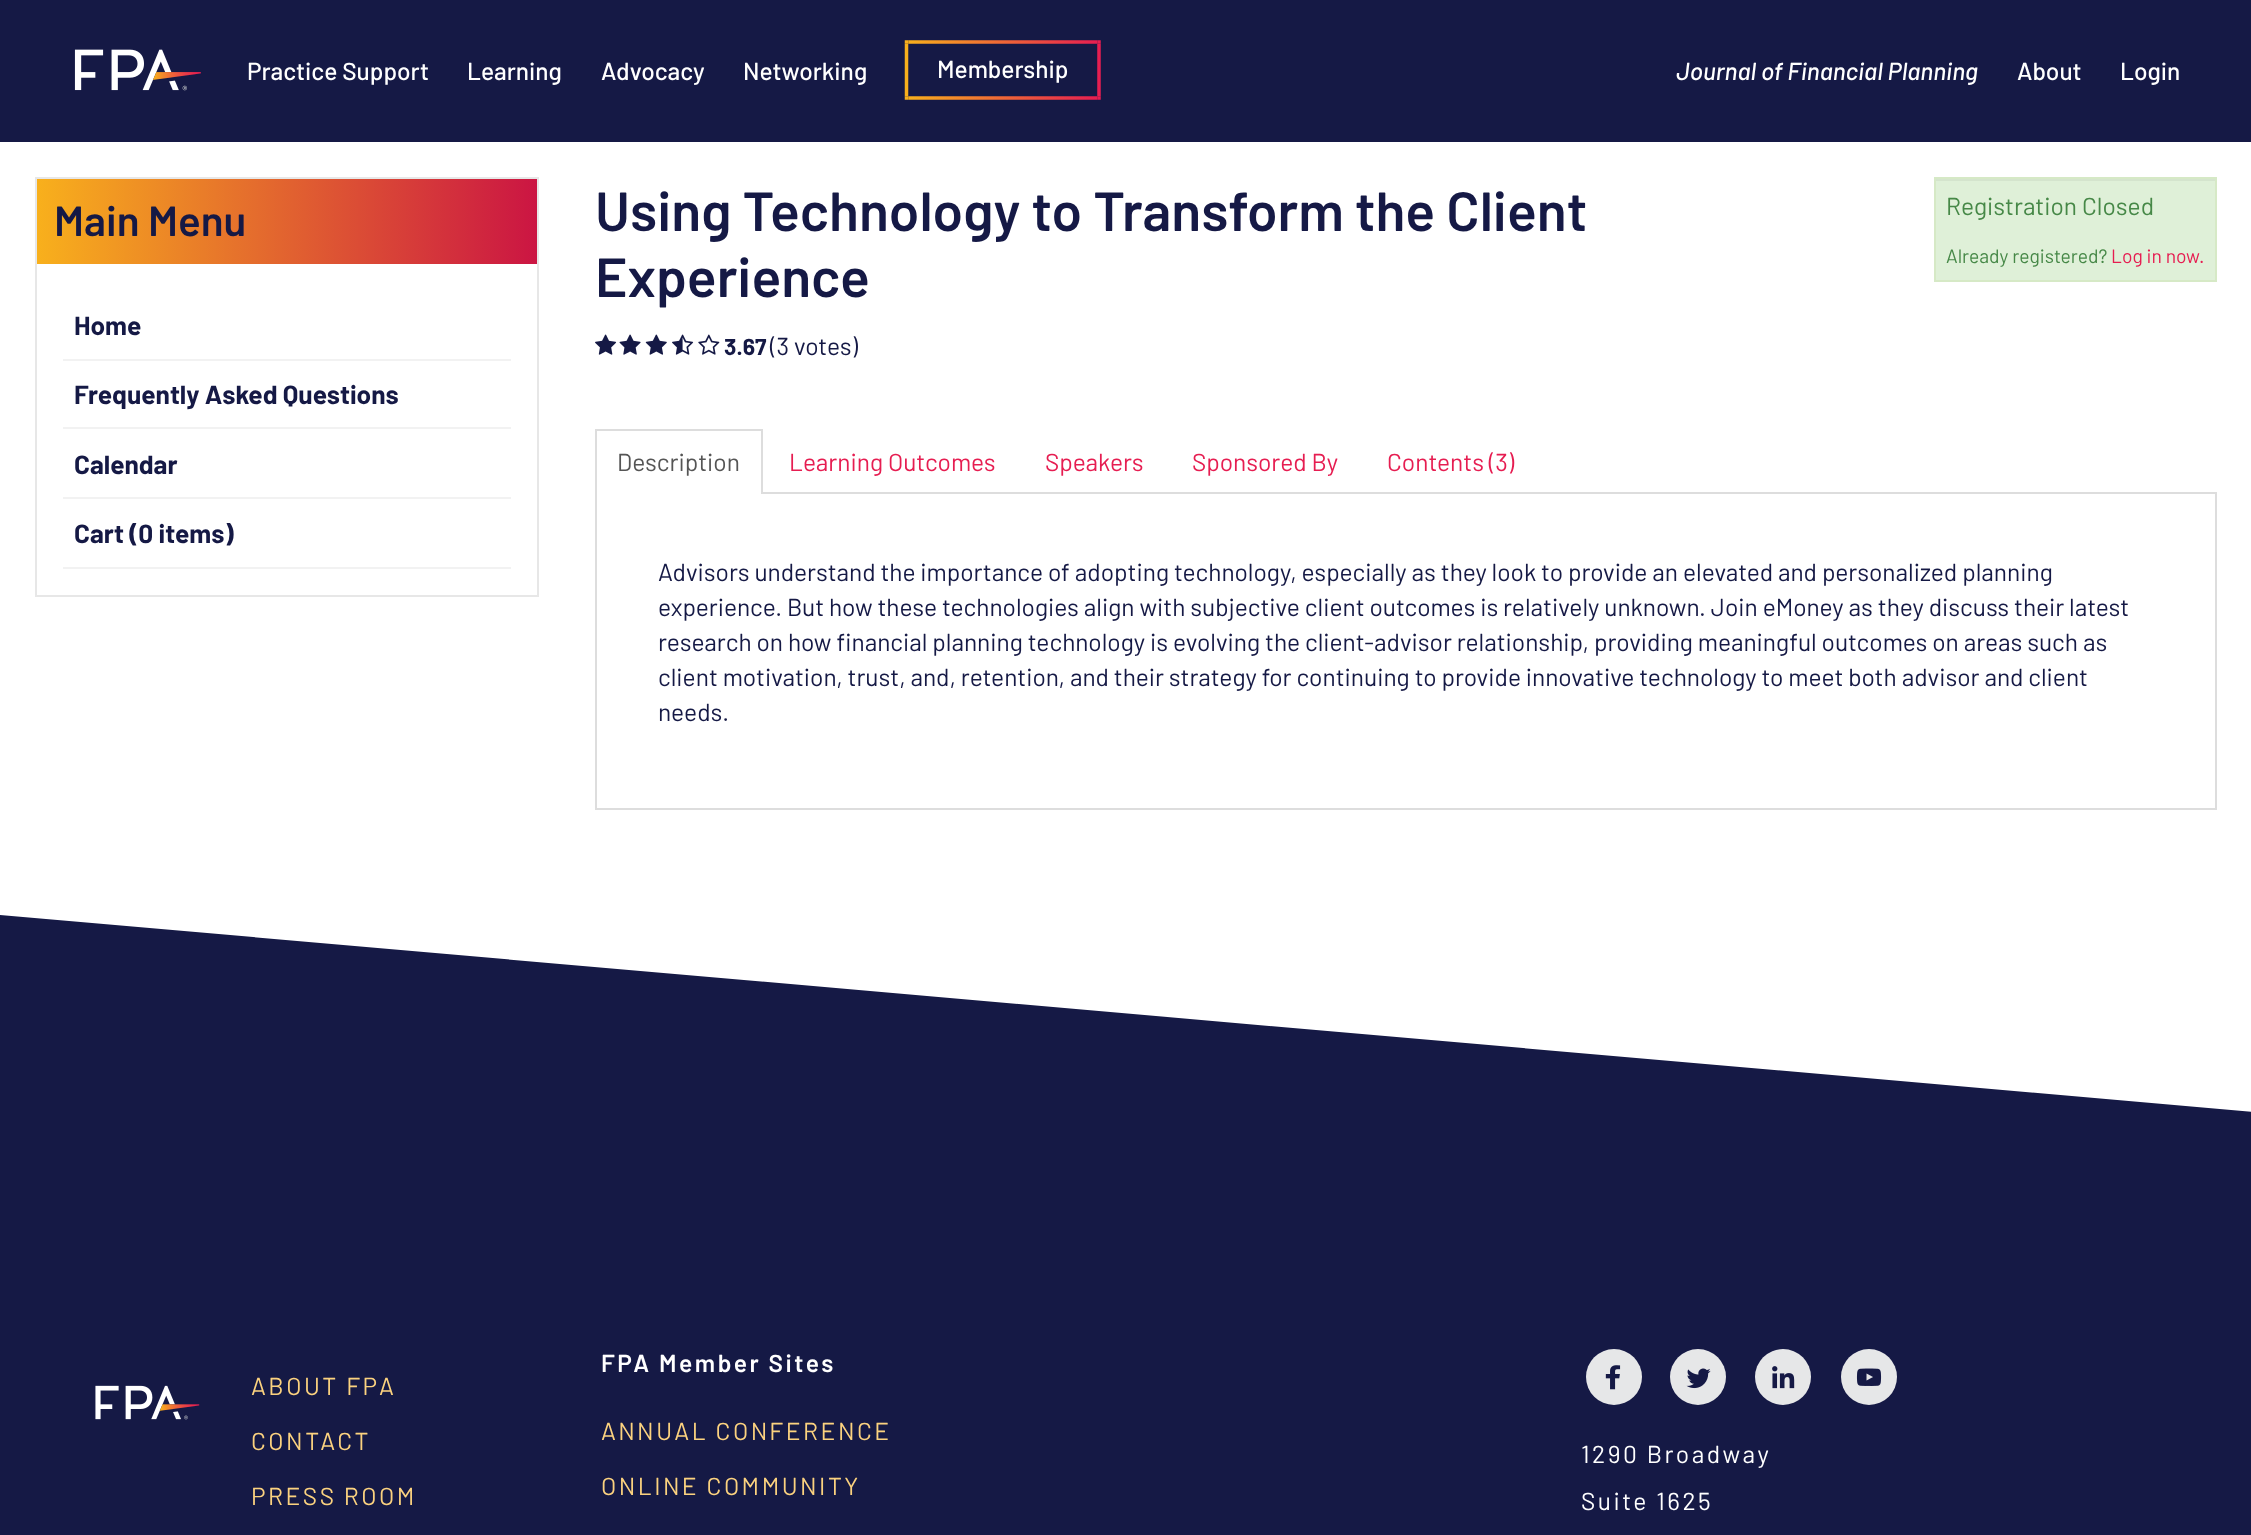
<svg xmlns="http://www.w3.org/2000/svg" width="2251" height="1535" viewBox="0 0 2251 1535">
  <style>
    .t1 { font: 500 24.5px Barlow; fill: #fff; }
    .t2 { font: italic 500 24.5px Barlow; fill: #fff; }
    .t3 { font: 600 42px Barlow; fill: #151945; }
    .t4 { font: bold 26.25px Barlow; fill: #151945; }
    .t5 { font: 600 55.1px Barlow; fill: #151945; }
    .t6 { font: bold 23px Barlow; fill: #151945; }
    .t7 { font: 24.5px Barlow; fill: #151945; }
    .t8 { font: 24.5px Barlow; fill: #468847; }
    .t9 { font: 19.25px Barlow; fill: #468847; }
    .t10 { font: 19.25px Barlow; fill: #e61d51; }
    .t11 { font: 24.5px Barlow; fill: #555; }
    .t12 { font: 24.5px Barlow; fill: #e61d51; }
    .t13 { font: 24.5px Barlow; letter-spacing: 2.5px; fill: #fbd27f; }
    .t14 { font: 600 24.5px Barlow; letter-spacing: 2.5px; fill: #fff; }
    .t15 { font: 24.5px Barlow; letter-spacing: 2.5px; fill: #fff; }
  </style>
  <defs>
    <linearGradient id="g1" gradientUnits="userSpaceOnUse" x1="37" y1="221" x2="537" y2="221"><stop offset="0" stop-color="#f8b01c"/><stop offset="1" stop-color="#cb1543"/></linearGradient>
  </defs>
  <rect width="100%" height="100%" fill="#fff"/>
  <rect x="0" y="0" width="2251" height="142" fill="#151945"/>
  <image x="74" y="49" width="127" height="42" href="images/1.png"/>
  <text x="247" y="80" class="t1">Practice Support</text>
  <text x="467" y="80" class="t1">Learning</text>
  <text x="601" y="80" class="t1">Advocacy</text>
  <text x="743" y="80" class="t1">Networking</text>
  <image x="904" y="40" width="197" height="60" href="images/2.png"/>
  <text x="937" y="78" class="t1">Membership</text>
  <text x="1676" y="80" class="t2">Journal of Financial Planning</text>
  <text x="2017" y="80" class="t1">About</text>
  <text x="2120" y="80" class="t1">Login</text>
  <rect x="36" y="178" width="502" height="418" fill="none" stroke="#e7e7e7" stroke-width="2"/>
  <rect x="37" y="179" width="500" height="85" fill="url(#g1)"/>
  <text x="54" y="236" class="t3">Main Menu</text>
  <rect x="63" y="359" width="448" height="2" fill="#f2f2f2"/>
  <text x="74" y="335" class="t4">Home</text>
  <rect x="63" y="427" width="448" height="2" fill="#f2f2f2"/>
  <text x="74" y="404" class="t4">Frequently Asked Questions</text>
  <rect x="63" y="497" width="448" height="2" fill="#f2f2f2"/>
  <text x="74" y="474" class="t4">Calendar</text>
  <rect x="63" y="567" width="448" height="2" fill="#f2f2f2"/>
  <text x="74" y="543" class="t4">Cart (0 items)</text>
  <text x="595" y="231" class="t5">Using Technology to Transform the Client</text>
  <text x="595" y="297" class="t5">Experience</text>
  <image x="595" y="334" width="22" height="21" href="images/3.png"/>
  <image x="619" y="334" width="22" height="21" href="images/4.png"/>
  <image x="645" y="334" width="22" height="21" href="images/5.png"/>
  <image x="672" y="334" width="22" height="21" href="images/6.png"/>
  <image x="698" y="334" width="22" height="21" href="images/7.png"/>
  <text x="724" y="355" class="t6">3.67</text>
  <text x="770" y="355" class="t7">(3 votes)</text>
  <rect x="1936" y="181" width="279" height="99" fill="#dff0d8"/>
  <rect x="1936" y="179" width="280" height="2" fill="#d4e4cd"/>
  <rect x="1935" y="178" width="281" height="103" fill="none" stroke="#d6e9c6" stroke-width="2"/>
  <text x="1946" y="215" class="t8">Registration Closed</text>
  <text x="1946" y="263" class="t9">Already registered?</text>
  <text x="2111" y="263" class="t10">Log in now.</text>
  <rect x="596" y="493" width="1620" height="316" fill="none" stroke="#ddd" stroke-width="2"/>
  <rect x="597" y="492" width="164" height="2" fill="#fff"/>
  <rect x="595" y="429" width="168" height="2" fill="#ddd"/>
  <rect x="761" y="429" width="2" height="65" fill="#ddd"/>
  <rect x="595" y="429" width="2" height="65" fill="#ddd"/>
  <text x="617" y="471" class="t11">Description</text>
  <text x="789" y="471" class="t12">Learning Outcomes</text>
  <text x="1045" y="471" class="t12">Speakers</text>
  <text x="1192" y="471" class="t12">Sponsored By</text>
  <text x="1387" y="471" class="t12">Contents (3)</text>
  <text x="658" y="581" class="t7">Advisors understand the importance of adopting technology, especially as they look to provide an elevated and personalized planning</text>
  <text x="658" y="616" class="t7">experience. But how these technologies align with subjective client outcomes is relatively unknown. Join eMoney as they discuss their latest</text>
  <text x="658" y="651" class="t7">research on how financial planning technology is evolving the client-advisor relationship, providing meaningful outcomes on areas such as</text>
  <text x="658" y="686" class="t7">client motivation, trust, and, retention, and their strategy for continuing to provide innovative technology to meet both advisor and client</text>
  <text x="658" y="721" class="t7">needs.</text>
  <path d="M0 1230V915L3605 1230Z" fill="#151945"/>
  <rect x="0" y="1230" width="2251" height="305" fill="#151945"/>
  <image x="95" y="1385" width="105" height="35" href="images/8.png"/>
  <text x="251" y="1395" class="t13">ABOUT FPA</text>
  <text x="251" y="1450" class="t13">CONTACT</text>
  <text x="251" y="1505" class="t13">PRESS ROOM</text>
  <text x="601" y="1372" class="t14">FPA Member Sites</text>
  <text x="601" y="1440" class="t13">ANNUAL CONFERENCE</text>
  <text x="601" y="1495" class="t13">ONLINE COMMUNITY</text>
  <circle cx="1614" cy="1377" r="28" fill="#e6e7e8"/>
  <image x="1605" y="1365" width="16" height="25" href="images/9.png"/>
  <circle cx="1698" cy="1377" r="28" fill="#e6e7e8"/>
  <image x="1686" y="1368" width="25" height="21" href="images/10.png"/>
  <circle cx="1783" cy="1377" r="28" fill="#e6e7e8"/>
  <image x="1772" y="1366" width="23" height="23" href="images/11.png"/>
  <circle cx="1869" cy="1377" r="28" fill="#e6e7e8"/>
  <image x="1856" y="1368" width="26" height="18" href="images/12.png"/>
  <text x="1581" y="1463" class="t15">1290 Broadway</text>
  <text x="1581" y="1510" class="t15">Suite 1625</text>
</svg>
